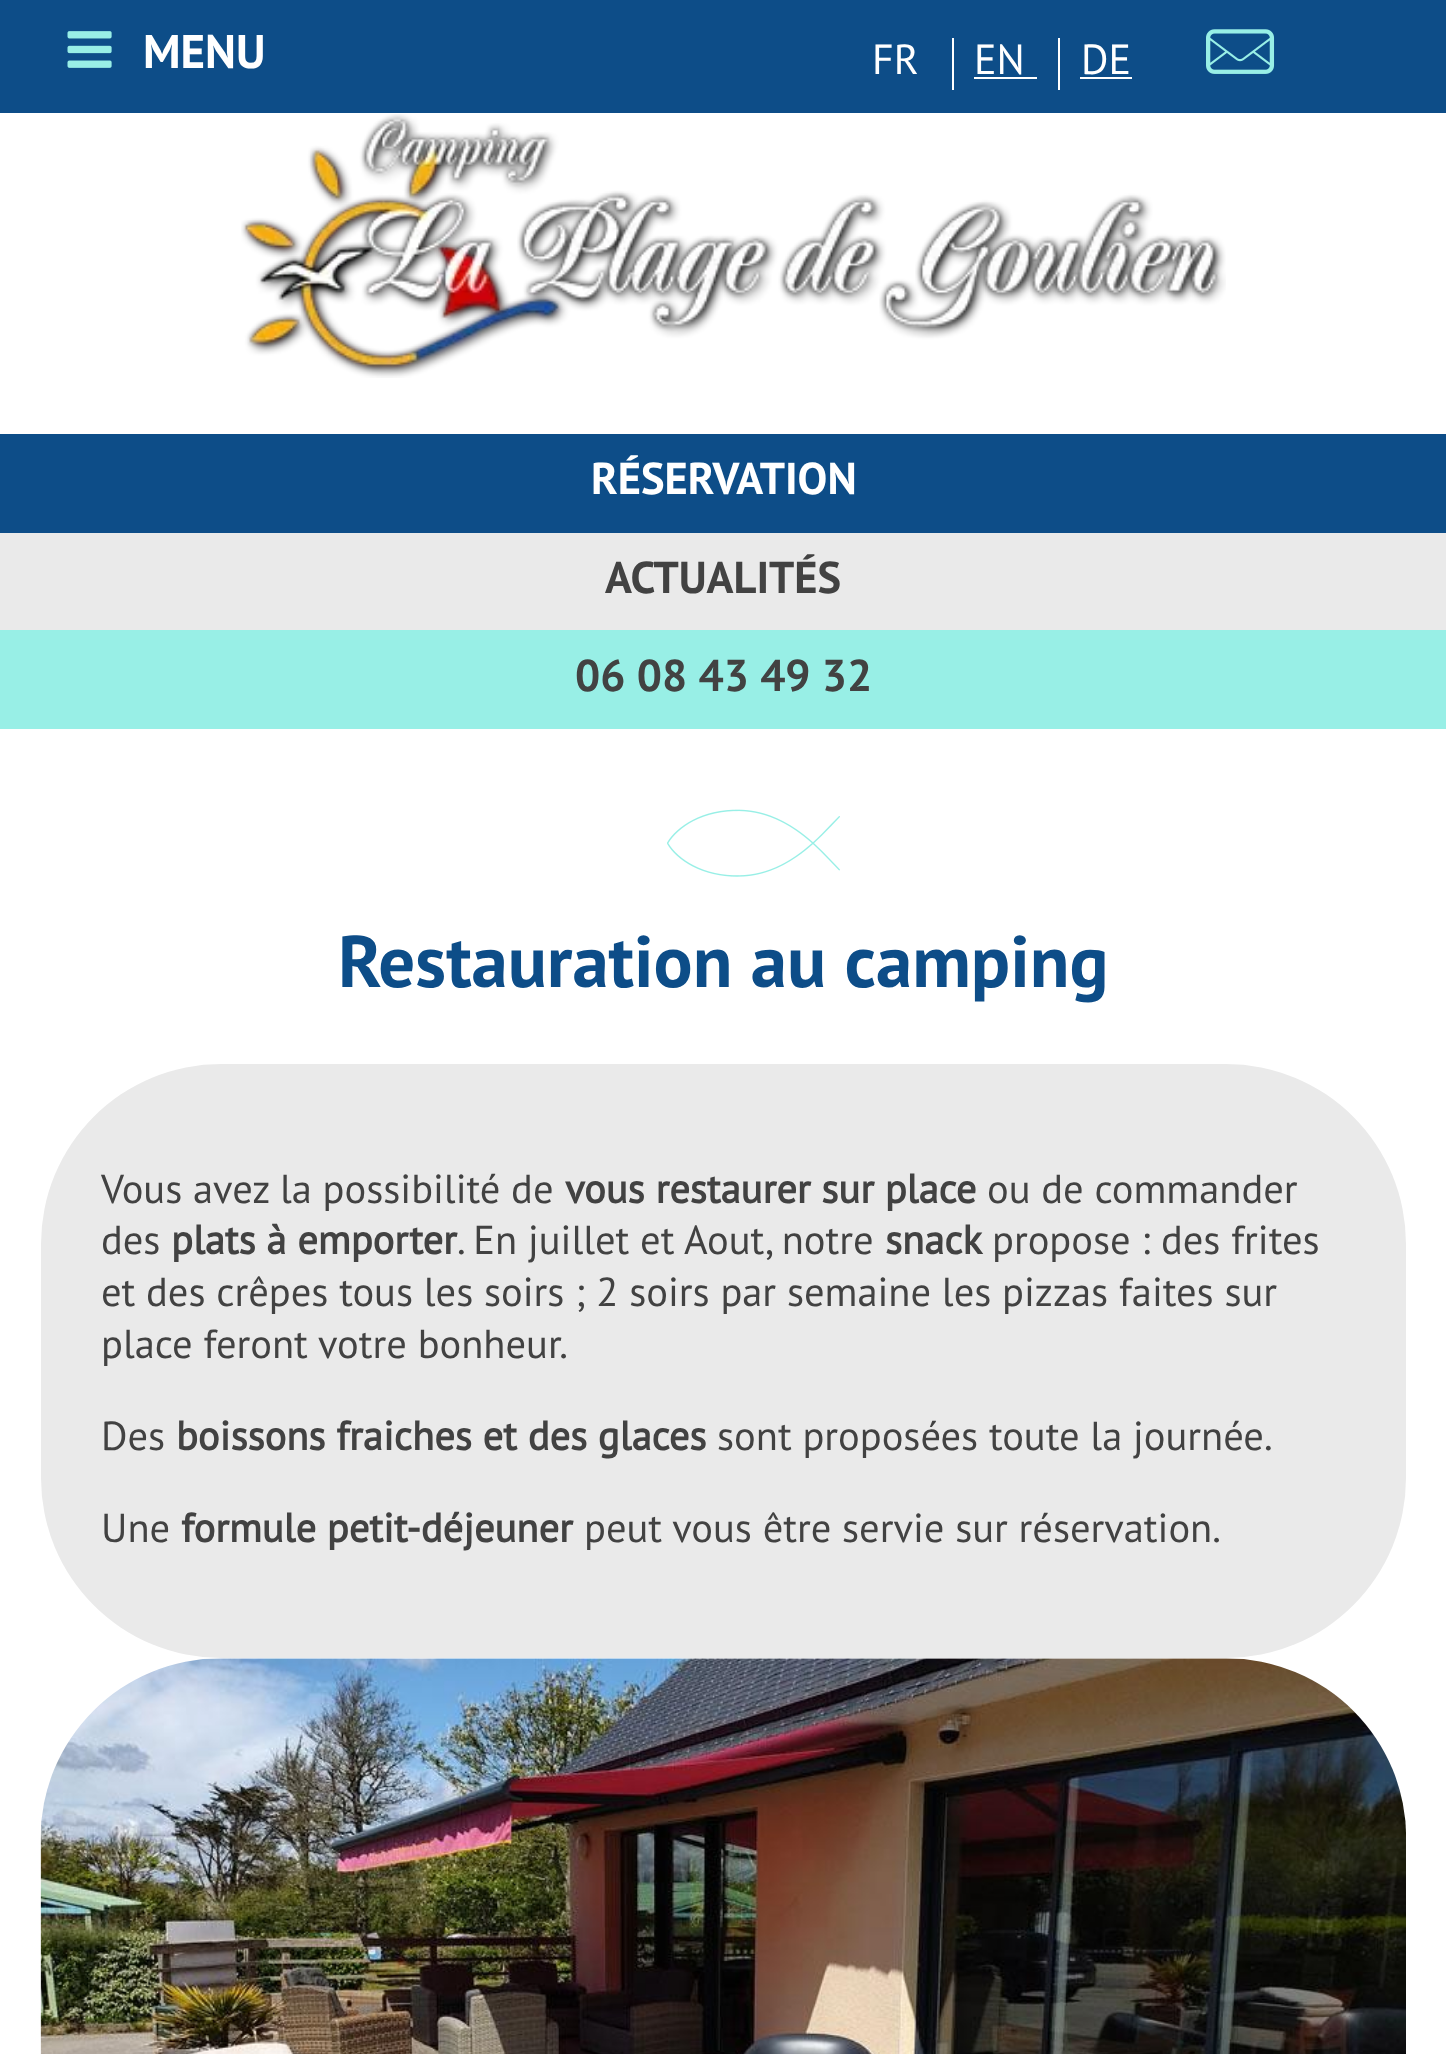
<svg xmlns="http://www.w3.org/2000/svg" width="1446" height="2054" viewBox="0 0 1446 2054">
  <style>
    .t1 { font: bold 47px PT Sans; fill: #fff; }
    .t2 { font: 42px PT Sans; fill: #fff; }
    .t3 { font: bold 44.5px PT Sans; fill: #fff; }
    .t4 { font: bold 44.5px PT Sans; fill: #424242; }
    .t5 { font: bold 72.9px PT Sans; fill: #0d4d88; }
    .t6 { font: 40.5px PT Sans; fill: #424242; }
    .t7 { font: bold 40.5px 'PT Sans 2'; fill: #424242; }
  </style>
  <rect width="100%" height="100%" fill="#fff"/>
  <rect x="0" y="0" width="1446" height="113" fill="#0d4d88"/>
  <image x="67" y="31" width="45" height="37" href="images/1.png"/>
  <text x="143" y="68" class="t1">MENU</text>
  <text x="872" y="74" class="t2">FR</text>
  <rect x="952" y="38" width="2" height="52" fill="#fff"/>
  <text x="974" y="74" class="t2">EN</text>
  <rect x="1058" y="38" width="2" height="52" fill="#fff"/>
  <rect x="974" y="77" width="63" height="2" fill="#fff"/>
  <text x="1081" y="74" class="t2">DE</text>
  <rect x="1080" y="77" width="52" height="2" fill="#fff"/>
  <image x="1206" y="29" width="69" height="45" href="images/2.png"/>
  <image x="241" y="114" width="985" height="264" href="images/3.png"/>
  <rect x="0" y="434" width="1446" height="99" fill="#0d4d88"/>
  <text x="591" y="494" class="t3">RÉSERVATION</text>
  <rect x="0" y="533" width="1446" height="97" fill="#eaeaea"/>
  <text x="605" y="593" class="t4">ACTUALITÉS</text>
  <rect x="0" y="630" width="1446" height="99" fill="#98efe6"/>
  <text x="575" y="691" class="t4">06 08 43 49 32</text>
  <image x="667" y="809" width="173" height="68" href="images/4.png"/>
  <text x="338" y="987" class="t5">Restauration au camping</text>
  <rect x="41" y="1064" width="1365" height="594" rx="180" fill="#eaeaea"/>
  <text x="101" y="1203" class="t6">Vous avez la possibilité de</text>
  <text x="565" y="1203" class="t7">vous restaurer sur place</text>
  <text x="987" y="1203" class="t6">ou de commander</text>
  <text x="101" y="1254" class="t6">des</text>
  <text x="171" y="1254" class="t7">plats à emporter</text>
  <text x="457" y="1254" class="t6">. En juillet et Aout, notre</text>
  <text x="885" y="1254" class="t7">snack</text>
  <text x="992" y="1254" class="t6">propose : des frites</text>
  <text x="101" y="1306" class="t6">et des crêpes tous les soirs ; 2 soirs par semaine les pizzas faites sur</text>
  <text x="101" y="1358" class="t6">place feront votre bonheur.</text>
  <text x="101" y="1450" class="t6">Des</text>
  <text x="176" y="1450" class="t7">boissons fraiches et des glaces</text>
  <text x="717" y="1450" class="t6">sont proposées toute la journée.</text>
  <text x="101" y="1542" class="t6">Une</text>
  <text x="181" y="1542" class="t7">formule petit-déjeuner</text>
  <text x="584" y="1542" class="t6">peut vous être servie sur réservation.</text>
  <image x="40" y="1658" width="1366" height="396" href="images/5.png"/>
</svg>
